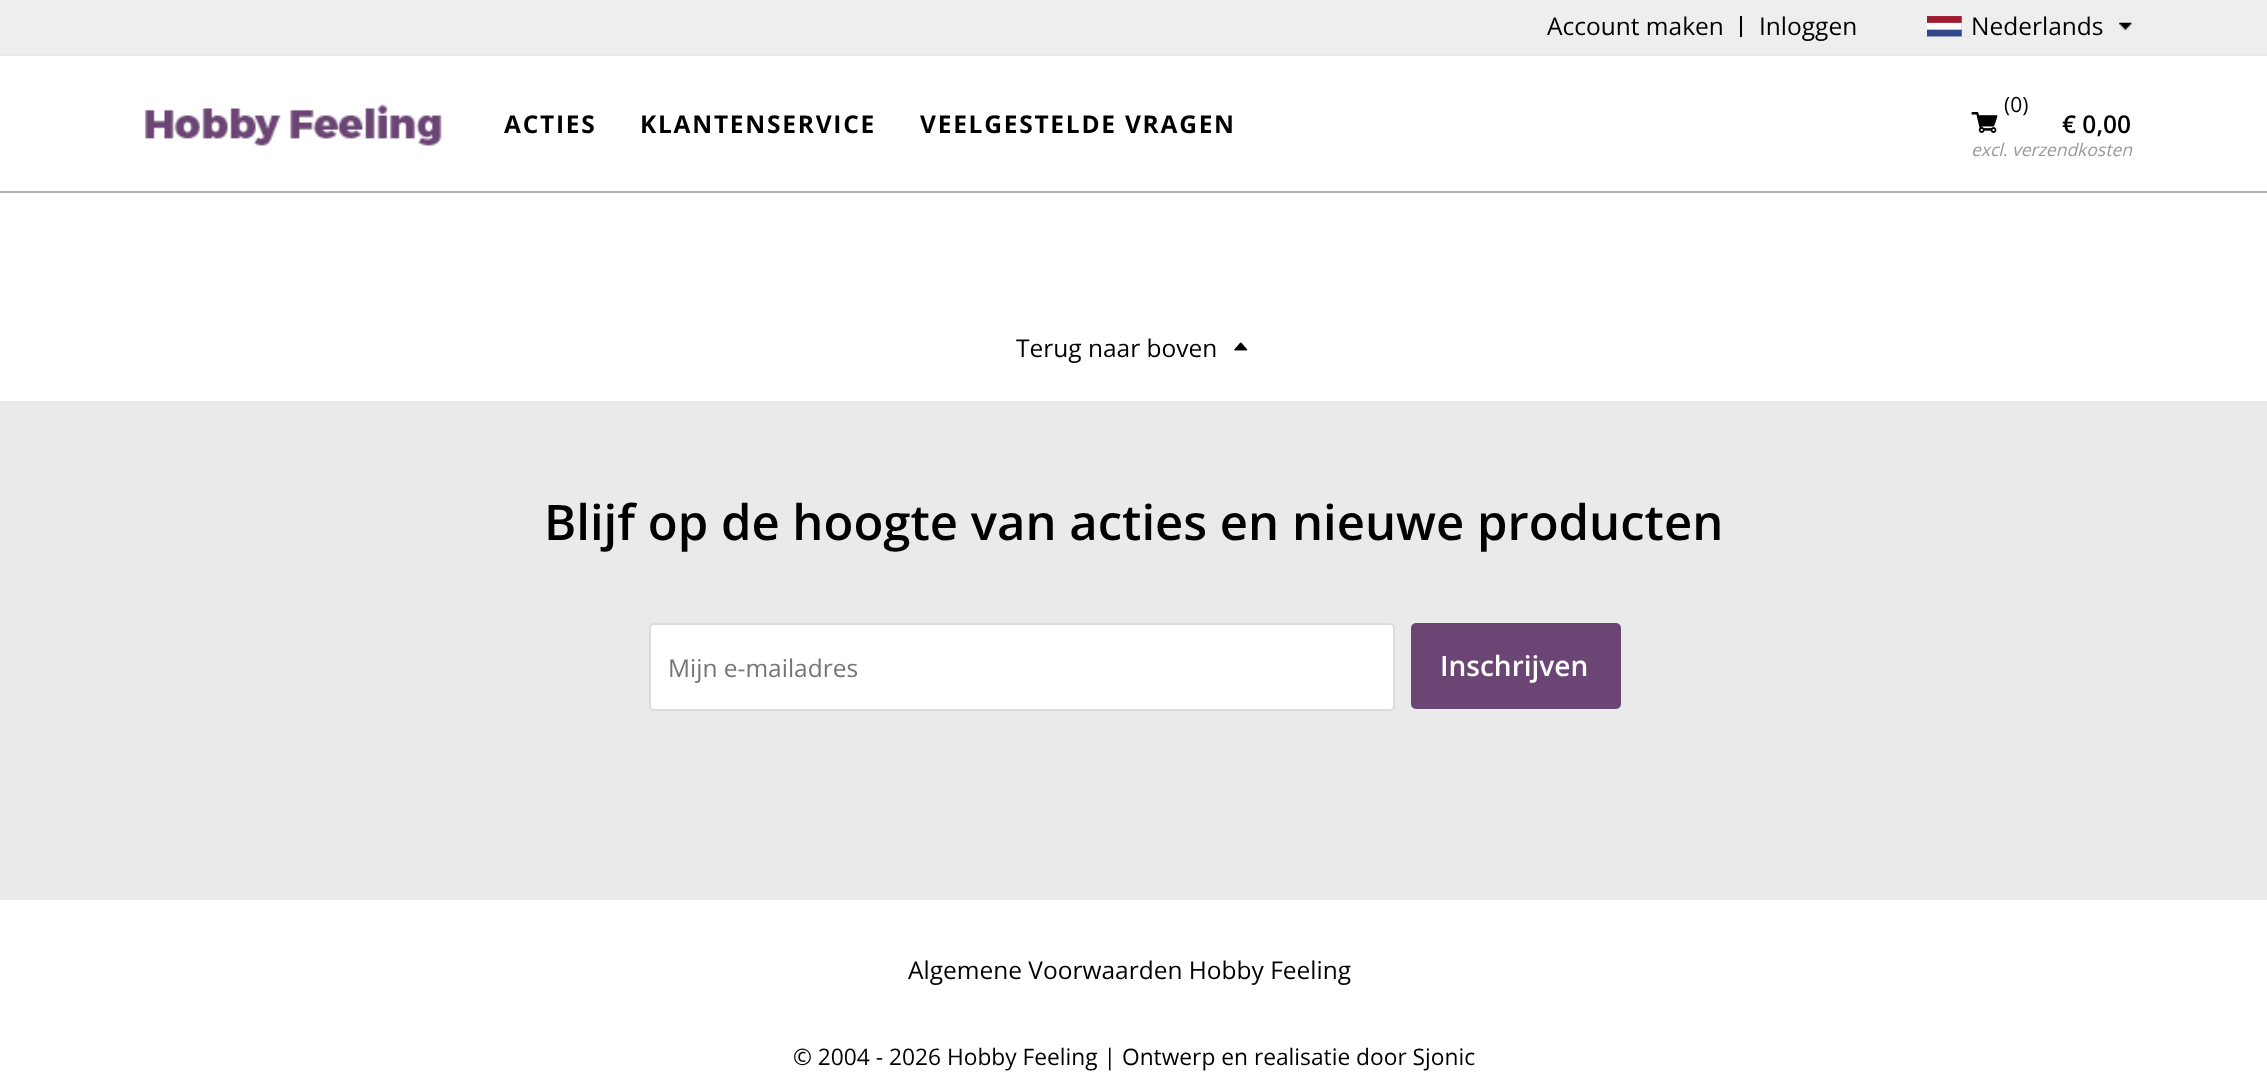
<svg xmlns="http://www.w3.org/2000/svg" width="2267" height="1090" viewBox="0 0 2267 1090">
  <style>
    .t1 { font: 24.5px Open Sans; fill: #000; }
    .t2 { font: bold 24.5px Open Sans; letter-spacing: 1.75px; fill: #000; }
    .t3 { font: 21px Open Sans; fill: #000; }
    .t4 { font: 600 24.5px Open Sans; fill: #000; }
    .t5 { font: italic 17.5px Open Sans; fill: #999; }
    .t6 { font: 600 49px Open Sans; fill: #000; }
    .t7 { font: 24.5px Open Sans; fill: #757575; }
    .t8 { font: 600 28px Open Sans; fill: #fff; }
    .t9 { font: 22.75px Open Sans; fill: #000; }
  </style>
  <rect width="100%" height="100%" fill="#fff"/>
  <rect x="0" y="0" width="2267" height="54" fill="#eee"/>
  <rect x="0" y="54" width="2267" height="2" fill="#e9e8e6"/>
  <text x="1547" y="35" class="t1">Account maken</text>
  <rect x="1740" y="16" width="2" height="21" fill="#000"/>
  <text x="1759" y="35" class="t1">Inloggen</text>
  <image x="2119" y="22" width="13" height="8" href="images/1.png"/>
  <image x="1927" y="16" width="35" height="21" href="images/2.png"/>
  <text x="1971" y="35" class="t1">Nederlands</text>
  <rect x="0" y="191" width="2267" height="2" fill="#b3b3b3"/>
  <image x="144" y="104" width="298" height="42" href="images/3.png"/>
  <text x="504" y="133" class="t2">ACTIES</text>
  <text x="640" y="133" class="t2">KLANTENSERVICE</text>
  <text x="920" y="133" class="t2">VEELGESTELDE VRAGEN</text>
  <text x="2004" y="112" class="t3">(0)</text>
  <image x="1971" y="112" width="27" height="21" href="images/4.png"/>
  <text x="2062" y="133" class="t4">€ 0,00</text>
  <text x="1971" y="156" class="t5">excl. verzendkosten</text>
  <text x="1016" y="357" class="t1">Terug naar boven</text>
  <image x="1234" y="342" width="14" height="9" href="images/5.png"/>
  <rect x="0" y="401" width="2267" height="499" fill="#eaeaea"/>
  <text x="544" y="540" class="t6">Blijf op de hoogte van acties en nieuwe producten</text>
  <rect x="650" y="624" width="744" height="86" rx="4" fill="#fff" stroke="#ddd" stroke-width="2"/>
  <text x="668" y="677" class="t7">Mijn e-mailadres</text>
  <rect x="1411" y="623" width="210" height="86" rx="5" fill="#6b4574"/>
  <text x="1440" y="676" class="t8">Inschrijven</text>
  <text x="908" y="979" class="t1">Algemene Voorwaarden Hobby Feeling</text>
  <text x="793" y="1065" class="t9">© 2004 - 2026 Hobby Feeling | Ontwerp en realisatie door Sjonic</text>
</svg>
